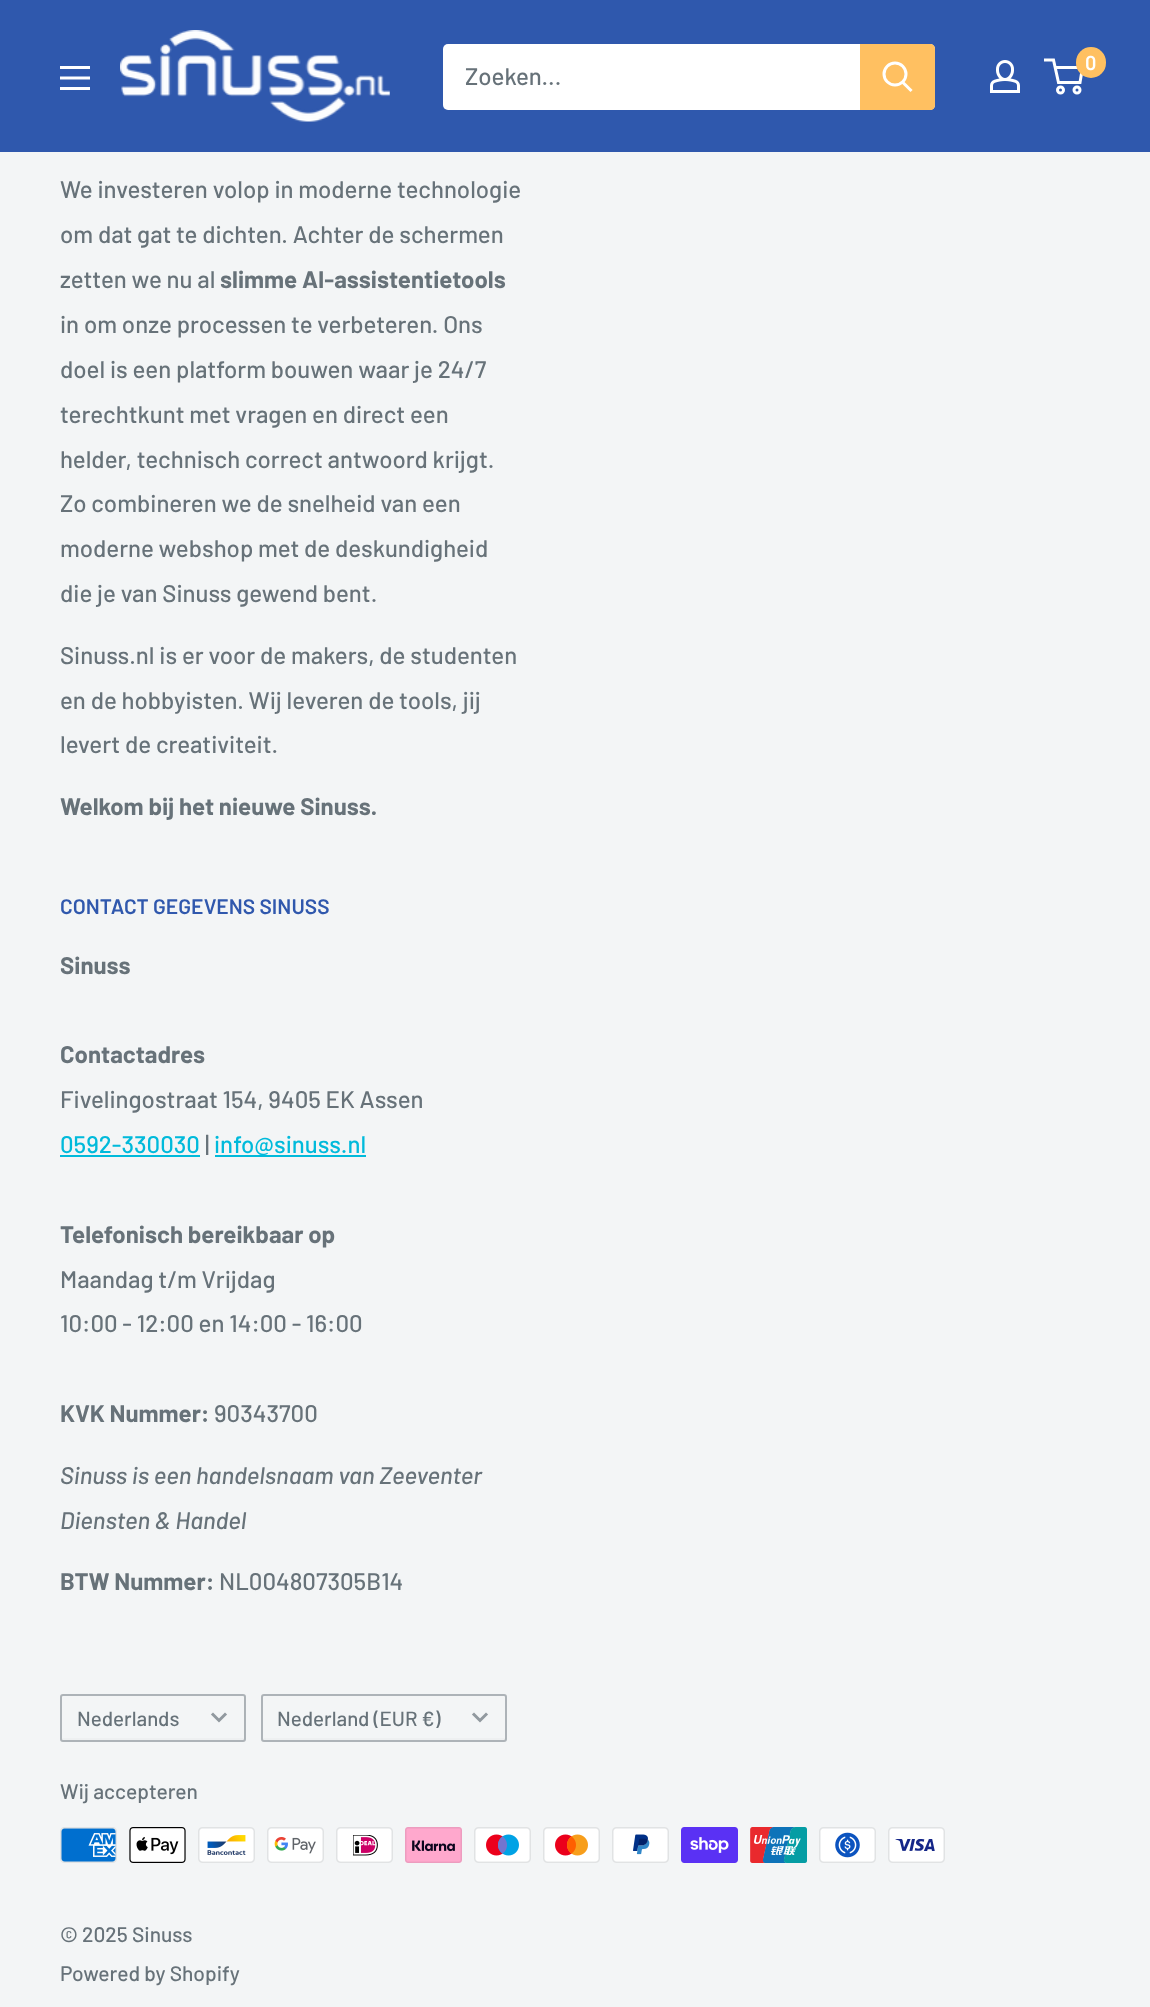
<svg xmlns="http://www.w3.org/2000/svg" width="1150" height="2007" viewBox="0 0 1150 2007">
  <style>
    .t1 { font: 600 20px Barlow; fill: #fff; }
    .t2 { font: 500 24px Barlow; fill: #677279; }
    .t3 { font: bold 24px Barlow; fill: #677279; }
    .t4 { font: 600 21px Barlow; fill: #3058ad; }
    .t5 { font: 500 24px Barlow; fill: #00badb; }
    .t6 { font: italic 500 24px Barlow; fill: #677279; }
    .t7 { font: 500 20.5px Barlow; fill: #677279; }
    .t8 { font: 500 21px Barlow; fill: #677279; }
  </style>
  <rect width="100%" height="100%" fill="#f3f5f6"/>
  <rect x="0" y="0" width="1150" height="152" fill="#2f58ad"/>
  <image x="120" y="30" width="270" height="92" href="images/1.png"/>
  <image x="990" y="60" width="30" height="33" href="images/2.png"/>
  <circle cx="1060.5" cy="90" r="3" fill="none" stroke="#fff" stroke-width="3"/>
  <circle cx="1077" cy="90" r="3" fill="none" stroke="#fff" stroke-width="3"/>
  <path d="M1055 67.5H1082.5L1080 82.5H1058.5L1053.5 60H1044" fill="none" stroke="#fff" stroke-width="3"/>
  <rect x="1076" y="47" width="30" height="31" rx="15" fill="#ffc061"/>
  <text x="1085" y="70" class="t1">0</text>
  <image x="60" y="66" width="30" height="24" href="images/3.png"/>
  <rect x="443" y="44" width="492" height="66" rx="5" fill="#fff"/>
  <text x="465" y="85" class="t2">Zoeken...</text>
  <path d="M860 44H930C933 44 935 46 935 49V105C935 108 933 110 930 110H860Z" fill="#ffc061"/>
  <path d="M910.5 90L903 82.5" fill="none" stroke="#fff" stroke-width="3" stroke-linecap="square"/>
  <circle cx="895" cy="74" r="11" fill="none" stroke="#fff" stroke-width="3"/>
  <text x="60" y="198" class="t2">We investeren volop in moderne technologie</text>
  <text x="60" y="243" class="t2">om dat gat te dichten. Achter de schermen</text>
  <text x="60" y="288" class="t2">zetten we nu al</text>
  <text x="220" y="288" class="t3">slimme AI-assistentietools</text>
  <text x="60" y="333" class="t2">in om onze processen te verbeteren. Ons</text>
  <text x="60" y="378" class="t2">doel is een platform bouwen waar je 24/7</text>
  <text x="60" y="423" class="t2">terechtkunt met vragen en direct een</text>
  <text x="60" y="468" class="t2">helder, technisch correct antwoord krijgt.</text>
  <text x="60" y="512" class="t2">Zo combineren we de snelheid van een</text>
  <text x="60" y="557" class="t2">moderne webshop met de deskundigheid</text>
  <text x="60" y="602" class="t2">die je van Sinuss gewend bent.</text>
  <text x="60" y="664" class="t2">Sinuss.nl is er voor de makers, de studenten</text>
  <text x="60" y="709" class="t2">en de hobbyisten. Wij leveren de tools, jij</text>
  <text x="60" y="753" class="t2">levert de creativiteit.</text>
  <text x="60" y="815" class="t3">Welkom bij het nieuwe Sinuss.</text>
  <text x="60" y="914" class="t4">CONTACT GEGEVENS SINUSS</text>
  <text x="60" y="974" class="t3">Sinuss</text>
  <text x="60" y="1063" class="t3">Contactadres</text>
  <text x="60" y="1108" class="t2">Fivelingostraat 154, 9405 EK Assen</text>
  <text x="60" y="1153" class="t5">0592-330030</text>
  <rect x="60" y="1155" width="140" height="2" fill="#00badb"/>
  <text x="205" y="1153" class="t2">|</text>
  <rect x="215" y="1155" width="151" height="2" fill="#00badb"/>
  <text x="214" y="1153" class="t5">info@sinuss.nl</text>
  <text x="60" y="1243" class="t3">Telefonisch bereikbaar op</text>
  <text x="60" y="1288" class="t2">Maandag t/m Vrijdag</text>
  <text x="60" y="1332" class="t2">10:00 - 12:00 en 14:00 - 16:00</text>
  <text x="60" y="1422" class="t3">KVK Nummer:</text>
  <text x="214" y="1422" class="t2">90343700</text>
  <text x="60" y="1484" class="t6">Sinuss is een handelsnaam van Zeeventer</text>
  <text x="60" y="1529" class="t6">Diensten &amp; Handel</text>
  <text x="60" y="1590" class="t3">BTW Nummer:</text>
  <text x="219" y="1590" class="t2">NL004807305B14</text>
  <path d="M62 1737V1738C62 1739 63 1740 64 1740H244C244 1740 245 1739 245 1738V1696C245 1696 245 1695 244 1695V1737C244 1738 244 1738 243 1738H63C62 1738 62 1738 62 1737Z" fill="#eef0f1"/>
  <rect x="61" y="1695" width="184" height="46" rx="2" fill="none" stroke="#67727980" stroke-width="2"/>
  <text x="77" y="1726" class="t7">Nederlands</text>
  <path d="M225 1714.5L219 1720.5L213 1714.5" fill="none" stroke="#91999f" stroke-width="3" stroke-linecap="square"/>
  <path d="M263 1738C263 1739 264 1740 264 1740H504C505 1740 506 1739 506 1738V1737C506 1738 505 1738 504 1738Z" fill="#eef0f1"/>
  <rect x="262" y="1695" width="244" height="46" rx="2" fill="none" stroke="#67727980" stroke-width="2"/>
  <text x="277" y="1726" class="t7">Nederland (EUR €)</text>
  <path d="M486 1714.5L480 1720.5L474 1714.5" fill="none" stroke="#91999f" stroke-width="3" stroke-linecap="square"/>
  <text x="60" y="1799" class="t8">Wij accepteren</text>
  <image x="60" y="1827" width="57" height="36" href="images/4.png"/>
  <image x="129" y="1827" width="57" height="36" href="images/5.png"/>
  <image x="198" y="1827" width="57" height="36" href="images/6.png"/>
  <image x="267" y="1827" width="57" height="36" href="images/7.png"/>
  <image x="336" y="1827" width="57" height="36" href="images/8.png"/>
  <image x="405" y="1827" width="57" height="36" href="images/9.png"/>
  <image x="474" y="1827" width="57" height="36" href="images/10.png"/>
  <image x="543" y="1827" width="57" height="36" href="images/11.png"/>
  <image x="612" y="1827" width="57" height="36" href="images/12.png"/>
  <image x="681" y="1827" width="57" height="36" href="images/13.png"/>
  <image x="750" y="1827" width="57" height="36" href="images/14.png"/>
  <image x="819" y="1827" width="57" height="36" href="images/15.png"/>
  <image x="888" y="1827" width="57" height="36" href="images/16.png"/>
  <text x="60" y="1942" class="t8">© 2025 Sinuss</text>
  <text x="60" y="1981" class="t8">Powered by Shopify</text>
</svg>
